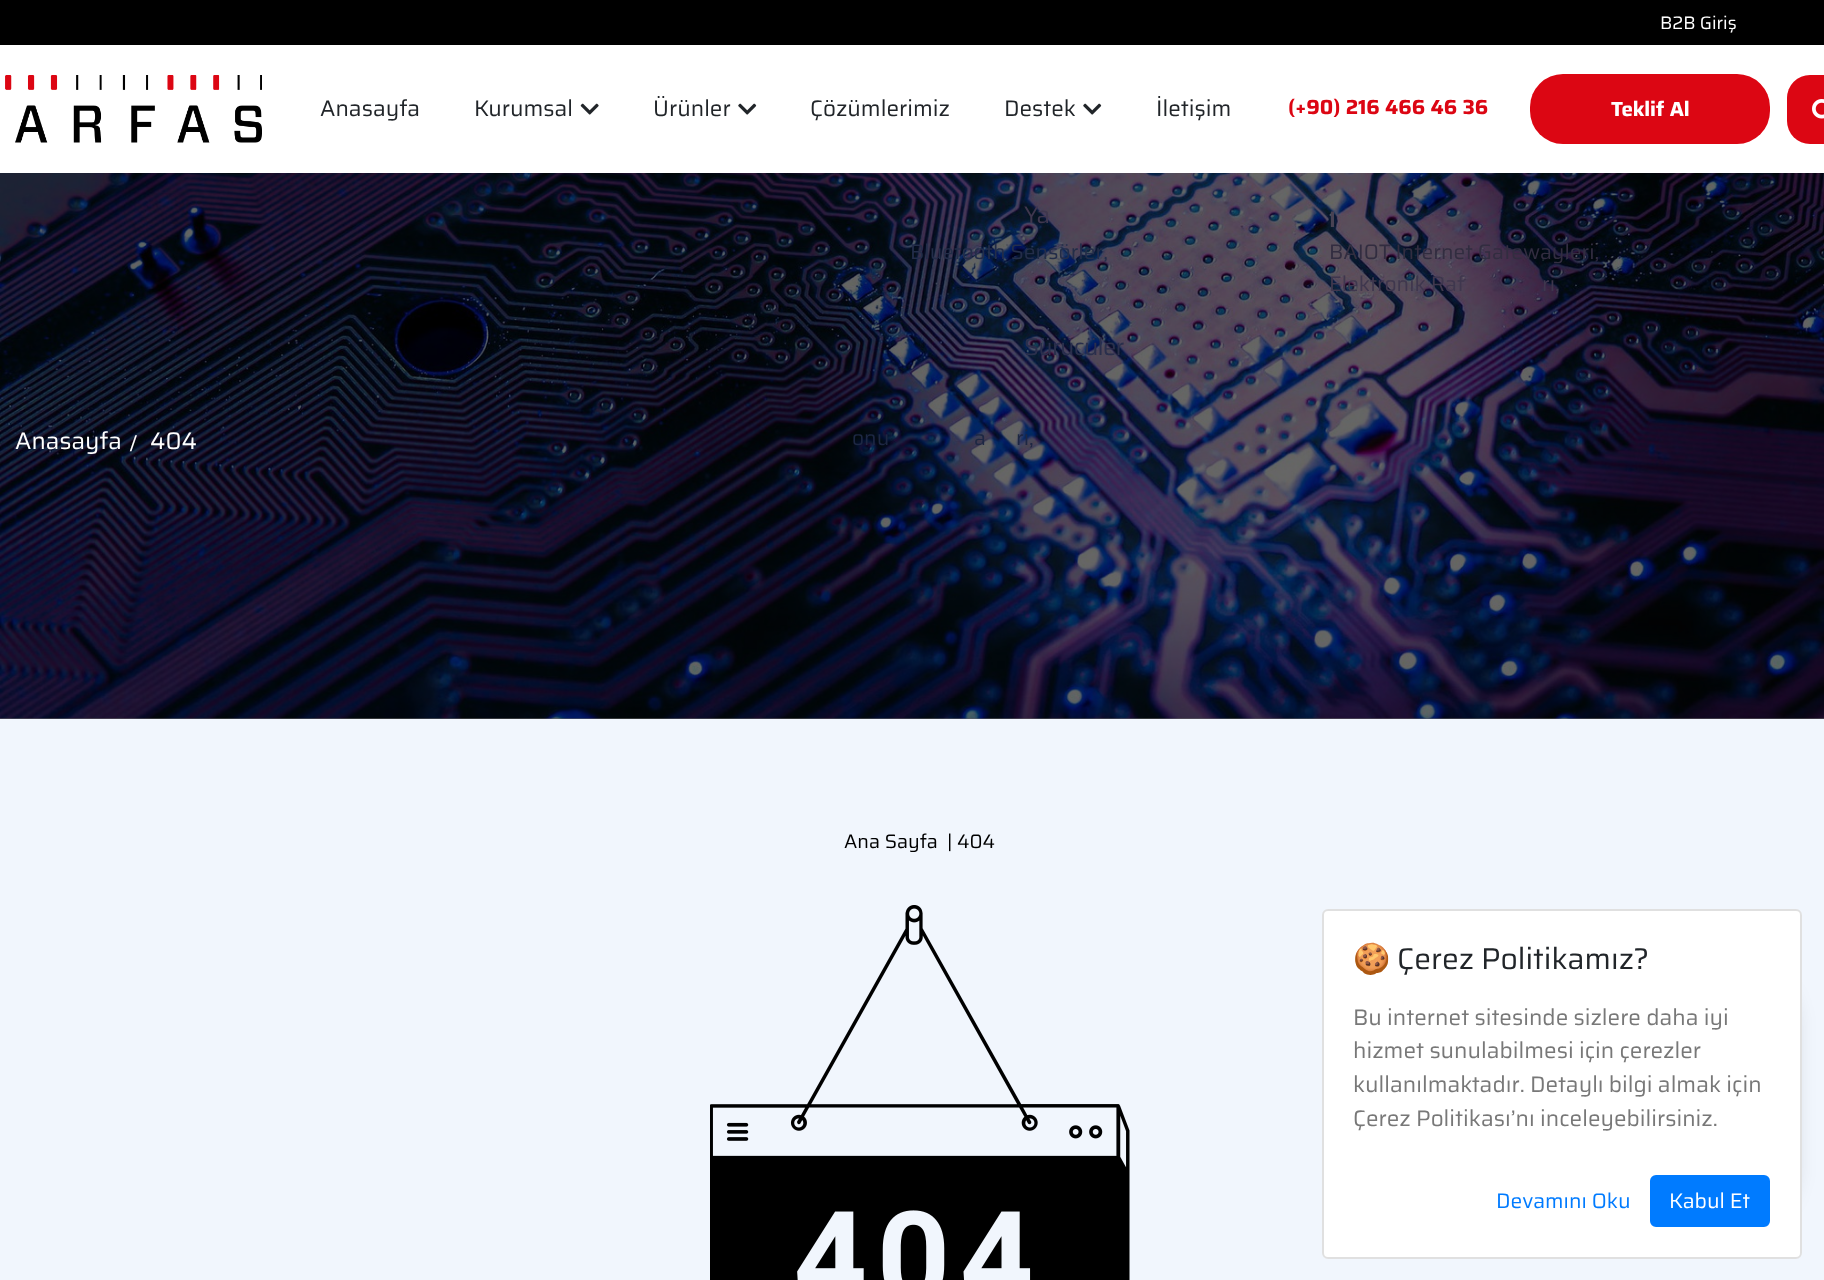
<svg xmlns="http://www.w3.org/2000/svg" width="1824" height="1280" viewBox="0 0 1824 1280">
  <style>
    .t1 { font: 24px Saira; fill: #fff; }
    .t2 { font: bold 24px Liberation Serif; fill: #fff; }
    .t3 { font: 18px Saira; fill: #fff; }
    .t4 { font: 22.5px Saira; fill: #212529; }
    .t5 { font: 21px Saira; fill: #232d49; }
    .t6 { font: 600 22.5px Saira; fill: #484253; }
    .t7 { font: 21px Saira; fill: #322d40; }
    .t8 { font: 21px Saira; fill: #3f374e; }
    .t9 { font: 21px Saira; fill: #1d2743; }
    .t10 { font: 24px Saira; letter-spacing: -0.75px; fill: #3f374e; }
    .t11 { font: 24px Saira; letter-spacing: -0.75px; fill: #2a2f4c; }
    .t12 { font: bold 20.4px Saira; fill: #dc0613; }
    .t13 { font: bold 20.5px Saira; fill: #fff; }
    .t14 { font: 19.5px Saira; fill: #000; }
    .t15 { font: 30px Noto Color Emoji; fill: #212529; }
    .t16 { font: 30px Saira; fill: #212529; }
    .t17 { font: 22.5px Saira; fill: #787878; }
    .t18 { font: 21px Saira; fill: #007bff; }
    .t19 { font: 21px Saira; fill: #fff; }
  </style>
  <rect width="100%" height="100%" fill="#666"/>
  <image x="0" y="173" width="1824" height="546" href="images/1.png"/>
  <text x="15" y="449" class="t1">Anasayfa</text>
  <text x="130" y="451" class="t2">/</text>
  <text x="150" y="449" class="t1">404</text>
  <rect x="0" y="0" width="1824" height="45" fill="#000"/>
  <text x="1660" y="29" class="t3">B2B Giriş</text>
  <rect x="0" y="45" width="1824" height="128" fill="#fff"/>
  <image x="5" y="75" width="257" height="68" href="images/2.png"/>
  <text x="653" y="116" class="t4">Ürünler</text>
  <image x="738" y="103" width="19" height="12" href="images/3.png"/>
  <text x="910" y="259" class="t5">Bluetooth Sensörler,</text>
  <text x="1329" y="227" class="t6">I</text>
  <text x="1329" y="259" class="t7">BAIOT Internet Gatewayleri,</text>
  <text x="1329" y="291" class="t8">Elektronik Raf</text>
  <text x="1542" y="291" class="t8">ri,</text>
  <text x="852" y="445" class="t9">onu</text>
  <text x="974" y="445" class="t9">a</text>
  <text x="1016" y="445" class="t9">ri,</text>
  <text x="320" y="116" class="t4">Anasayfa</text>
  <text x="474" y="116" class="t4">Kurumsal</text>
  <image x="580" y="103" width="19" height="12" href="images/4.png"/>
  <text x="810" y="116" class="t4">Çözümlerimiz</text>
  <text x="1004" y="116" class="t4">Destek</text>
  <image x="1083" y="103" width="19" height="12" href="images/3.png"/>
  <text x="1024" y="223" class="t10">Ya</text>
  <text x="1024" y="355" class="t11">Sürücüler</text>
  <text x="1156" y="116" class="t4">İletişim</text>
  <rect x="1787" y="75" width="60" height="69" rx="23" fill="#dc0613"/>
  <image x="1812" y="99" width="12" height="20" href="images/5.png"/>
  <text x="1288" y="114" class="t12">(+90) 216 466 46 36</text>
  <rect x="1530" y="74" width="240" height="70" rx="33" fill="#dc0613"/>
  <text x="1611" y="116" class="t13">Teklif Al</text>
  <rect x="0" y="719" width="1824" height="561" fill="#f1f6fd"/>
  <text x="844" y="848" class="t14">Ana Sayfa</text>
  <text x="947" y="848" class="t14">| 404</text>
  <image x="710" y="905" width="420" height="375" href="images/6.png"/>
  <rect x="1704" y="977" width="90" height="240" rx="45" fill="#00000029" filter="blur(10.5px)"/>
  <rect x="1322" y="909" width="480" height="350" rx="6" fill="#fff"/>
  <rect x="1323" y="910" width="478" height="348" rx="5" fill="none" stroke="#0000001f" stroke-width="2"/>
  <text x="1353" y="969" class="t15">🍪</text>
  <text x="1397" y="969" class="t16">Çerez Politikamız?</text>
  <text x="1353" y="1025" class="t17">Bu internet sitesinde sizlere daha iyi</text>
  <text x="1353" y="1058" class="t17">hizmet sunulabilmesi için çerezler</text>
  <text x="1353" y="1092" class="t17">kullanılmaktadır. Detaylı bilgi almak için</text>
  <text x="1353" y="1126" class="t17">Çerez Politikası’nı inceleyebilirsiniz.</text>
  <text x="1496" y="1208" class="t18">Devamını Oku</text>
  <rect x="1651" y="1176" width="118" height="50" rx="5" fill="#007bff" stroke="#007bff" stroke-width="2"/>
  <text x="1669" y="1208" class="t19">Kabul Et</text>
</svg>
